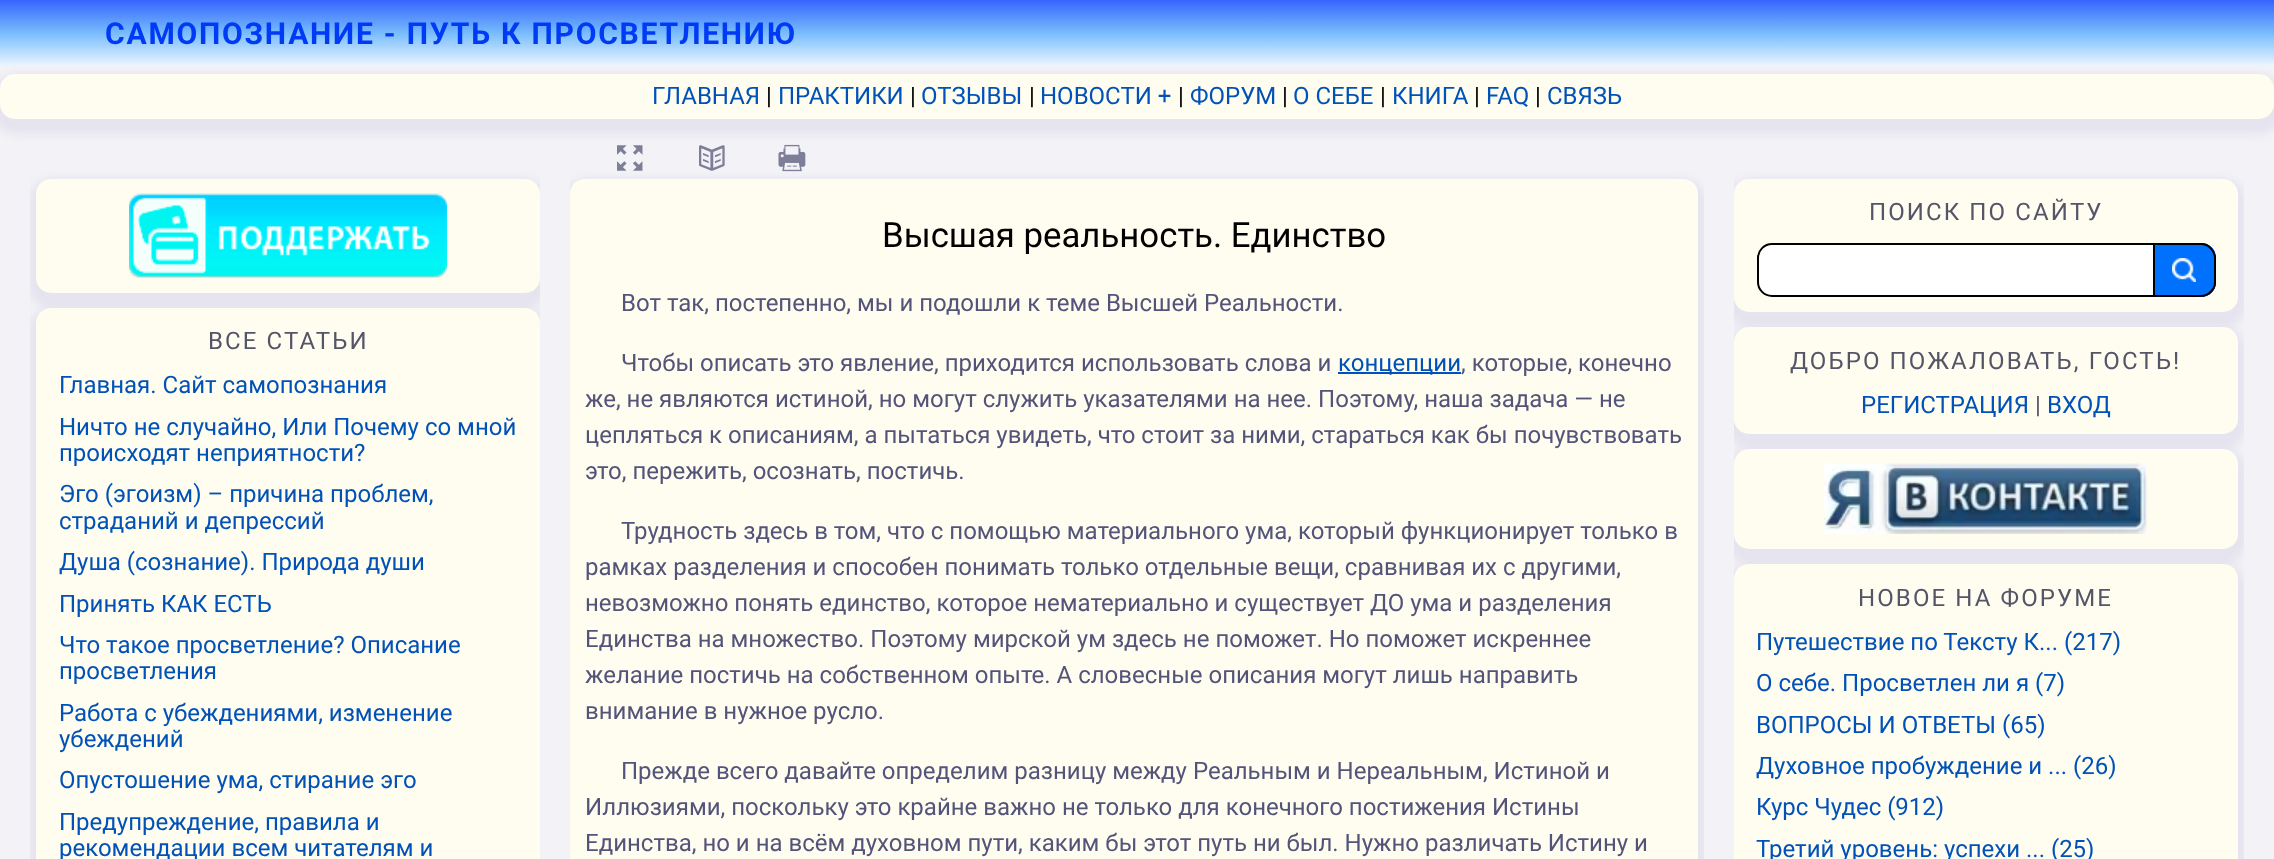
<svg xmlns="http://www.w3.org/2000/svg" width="2274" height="859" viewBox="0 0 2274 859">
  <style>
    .t1 { font: bold 30.1px Roboto; letter-spacing: 1.75px; fill: #003af5; }
    .t2 { font: 24px Roboto; fill: #0052b8; }
    .t3 { font: 24px Roboto; fill: #000; }
    .t4 { font: 24px Roboto; letter-spacing: 2.1px; fill: #555568; }
    .t5 { font: 34.75px Roboto; fill: #000; }
    .t6 { font: 24px Roboto; fill: #535479; }
    .t7 { font: 24px Roboto; fill: #555568; }
  </style>
  <defs>
    <linearGradient id="g1" gradientUnits="userSpaceOnUse" x1="1137" y1="0" x2="1137" y2="66"><stop offset="0" stop-color="#3665ff"/><stop offset="0.5" stop-color="#77bcfc"/><stop offset="1" stop-color="#ebf6ff"/></linearGradient>
    <clipPath id="clip1"><rect x="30" y="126" width="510" height="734"/></clipPath>
    <clipPath id="clip2"><rect x="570" y="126" width="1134" height="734"/></clipPath>
    <clipPath id="clip3"><rect x="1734" y="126" width="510" height="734"/></clipPath>
  </defs>
  <rect width="100%" height="100%" fill="#f2f2f7"/>
  <rect x="0" y="0" width="2274" height="66" fill="url(#g1)"/>
  <text x="105" y="44" class="t1">САМОПОЗНАНИЕ - ПУТЬ К ПРОСВЕТЛЕНИЮ</text>
  <rect x="-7" y="74" width="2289" height="60" rx="23" fill="#d9d5e680" filter="blur(4px)"/>
  <rect x="0" y="74" width="2274" height="45" rx="15" fill="#fffcf0"/>
  <text x="652" y="104" class="t2">ГЛАВНАЯ</text>
  <text x="766" y="104" class="t3">|</text>
  <text x="778" y="104" class="t2">ПРАКТИКИ</text>
  <text x="910" y="104" class="t3">|</text>
  <text x="921" y="104" class="t2">ОТЗЫВЫ</text>
  <text x="1029" y="104" class="t3">|</text>
  <text x="1040" y="104" class="t2">НОВОСТИ +</text>
  <text x="1178" y="104" class="t3">|</text>
  <text x="1190" y="104" class="t2">ФОРУМ</text>
  <text x="1282" y="104" class="t3">|</text>
  <text x="1293" y="104" class="t2">О СЕБЕ</text>
  <text x="1380" y="104" class="t3">|</text>
  <text x="1392" y="104" class="t2">КНИГА</text>
  <text x="1474" y="104" class="t3">|</text>
  <text x="1486" y="104" class="t2">FAQ</text>
  <text x="1535" y="104" class="t3">|</text>
  <text x="1547" y="104" class="t2">СВЯЗЬ</text>
  <g clip-path="url(#clip1)">
    <rect x="29" y="179" width="519" height="129" rx="23" fill="#d9d5e680" filter="blur(4px)"/>
  </g>
  <rect x="36" y="179" width="504" height="114" rx="15" fill="#fffcf0"/>
  <image x="129" y="193" width="318" height="85" href="images/1.png"/>
  <g clip-path="url(#clip1)">
    <rect x="29" y="308" width="519" height="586" rx="23" fill="#d9d5e680" filter="blur(4px)"/>
  </g>
  <path d="M51 308H525C533.5 308 540 314.5 540 323V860H36V323C36 314.5 42.5 308 51 308Z" fill="#fffcf0"/>
  <text x="208" y="349" class="t4">ВСЕ СТАТЬИ</text>
  <text x="59" y="393" class="t2">Главная. Сайт самопознания</text>
  <text x="59" y="435" class="t2">Ничто не случайно, Или Почему со мной</text>
  <text x="59" y="461" class="t2">происходят неприятности?</text>
  <text x="59" y="502" class="t2">Эго (эгоизм) – причина проблем,</text>
  <text x="59" y="529" class="t2">страданий и депрессий</text>
  <text x="59" y="570" class="t2">Душа (сознание). Природа души</text>
  <text x="59" y="612" class="t2">Принять КАК ЕСТЬ</text>
  <text x="59" y="653" class="t2">Что такое просветление? Описание</text>
  <text x="59" y="679" class="t2">просветления</text>
  <text x="59" y="721" class="t2">Работа с убеждениями, изменение</text>
  <text x="59" y="747" class="t2">убеждений</text>
  <text x="59" y="788" class="t2">Опустошение ума, стирание эго</text>
  <text x="59" y="830" class="t2">Предупреждение, правила и</text>
  <text x="59" y="856" class="t2">рекомендации всем читателям и</text>
  <g clip-path="url(#clip2)">
    <rect x="563" y="179" width="1143" height="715" rx="23" fill="#d9d5e680" filter="blur(4px)"/>
  </g>
  <image x="617" y="145" width="26" height="26" href="images/2.png"/>
  <image x="699" y="145" width="26" height="26" href="images/3.png"/>
  <image x="778" y="144" width="28" height="28" href="images/4.png"/>
  <path d="M585 179H1683C1691.5 179 1698 185.5 1698 194V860H570V194C570 185.5 576.5 179 585 179Z" fill="#fffcf0"/>
  <text x="882" y="247" class="t5">Высшая реальность. Единство</text>
  <text x="621" y="311" class="t6">Вот так, постепенно, мы и подошли к теме Высшей Реальности.</text>
  <text x="621" y="371" class="t6">Чтобы описать это явление, приходится использовать слова и</text>
  <rect x="1338" y="372" width="123" height="2" fill="#0052b8"/>
  <text x="1338" y="371" class="t2">концепции</text>
  <text x="1461" y="371" class="t6">, которые, конечно</text>
  <text x="585" y="407" class="t6">же, не являются истиной, но могут служить указателями на нее. Поэтому, наша задача — не</text>
  <text x="585" y="443" class="t6">цепляться к описаниям, а пытаться увидеть, что стоит за ними, стараться как бы почувствовать</text>
  <text x="585" y="479" class="t6">это, пережить, осознать, постичь.</text>
  <text x="621" y="539" class="t6">Трудность здесь в том, что с помощью материального ума, который функционирует только в</text>
  <text x="585" y="575" class="t6">рамках разделения и способен понимать только отдельные вещи, сравнивая их с другими,</text>
  <text x="585" y="611" class="t6">невозможно понять единство, которое нематериально и существует ДО ума и разделения</text>
  <text x="585" y="647" class="t6">Единства на множество. Поэтому мирской ум здесь не поможет. Но поможет искреннее</text>
  <text x="585" y="683" class="t6">желание постичь на собственном опыте. А словесные описания могут лишь направить</text>
  <text x="585" y="719" class="t6">внимание в нужное русло.</text>
  <text x="621" y="779" class="t6">Прежде всего давайте определим разницу между Реальным и Нереальным, Истиной и</text>
  <text x="585" y="815" class="t6">Иллюзиями, поскольку это крайне важно не только для конечного постижения Истины</text>
  <text x="585" y="851" class="t6">Единства, но и на всём духовном пути, каким бы этот путь ни был. Нужно различать Истину и</text>
  <g clip-path="url(#clip3)">
    <rect x="1727" y="179" width="519" height="148" rx="23" fill="#d9d5e680" filter="blur(4px)"/>
  </g>
  <rect x="1734" y="179" width="504" height="133" rx="15" fill="#fffcf0"/>
  <text x="1869" y="220" class="t4">ПОИСК ПО САЙТУ</text>
  <rect x="1758" y="244" width="457" height="52" rx="14" fill="#fff" stroke="#000" stroke-width="2"/>
  <path d="M2153 243H2201C2209.5 243 2216 249.5 2216 258V282C2216 290.5 2209.5 297 2201 297H2153Z" fill="#0071fd"/>
  <image x="2172" y="258" width="24" height="24" href="images/5.png"/>
  <path d="M2154 244H2201C2208.5 244 2215 250.5 2215 258V282C2215 289.5 2208.5 296 2201 296H2154Z" fill="none" stroke="#000" stroke-width="2"/>
  <g clip-path="url(#clip3)">
    <rect x="1727" y="327" width="519" height="122" rx="23" fill="#d9d5e680" filter="blur(4px)"/>
  </g>
  <rect x="1734" y="327" width="504" height="107" rx="15" fill="#fffcf0"/>
  <text x="1790" y="369" class="t4">ДОБРО ПОЖАЛОВАТЬ, ГОСТЬ!</text>
  <text x="1861" y="413" class="t2">РЕГИСТРАЦИЯ</text>
  <text x="2035" y="413" class="t7">|</text>
  <text x="2047" y="413" class="t2">ВХОД</text>
  <g clip-path="url(#clip3)">
    <rect x="1727" y="449" width="519" height="115" rx="23" fill="#d9d5e680" filter="blur(4px)"/>
  </g>
  <rect x="1734" y="449" width="504" height="100" rx="15" fill="#fffcf0"/>
  <image x="1824" y="463" width="323" height="71" href="images/6.png"/>
  <g clip-path="url(#clip3)">
    <rect x="1727" y="564" width="519" height="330" rx="23" fill="#d9d5e680" filter="blur(4px)"/>
  </g>
  <path d="M1749 564H2223C2231.5 564 2238 570.5 2238 579V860H1734V579C1734 570.5 1740.5 564 1749 564Z" fill="#fffcf0"/>
  <text x="1858" y="606" class="t4">НОВОЕ НА ФОРУМЕ</text>
  <text x="1756" y="650" class="t2">Путешествие по Тексту К...</text>
  <text x="2064" y="650" class="t2">(217)</text>
  <text x="1756" y="691" class="t2">О себе. Просветлен ли я (7)</text>
  <text x="1756" y="733" class="t2">ВОПРОСЫ И ОТВЕТЫ (65)</text>
  <text x="1756" y="774" class="t2">Духовное пробуждение и ... (26)</text>
  <text x="1756" y="815" class="t2">Курс Чудес (912)</text>
  <text x="1756" y="857" class="t2">Третий уровень: успехи ... (25)</text>
</svg>
